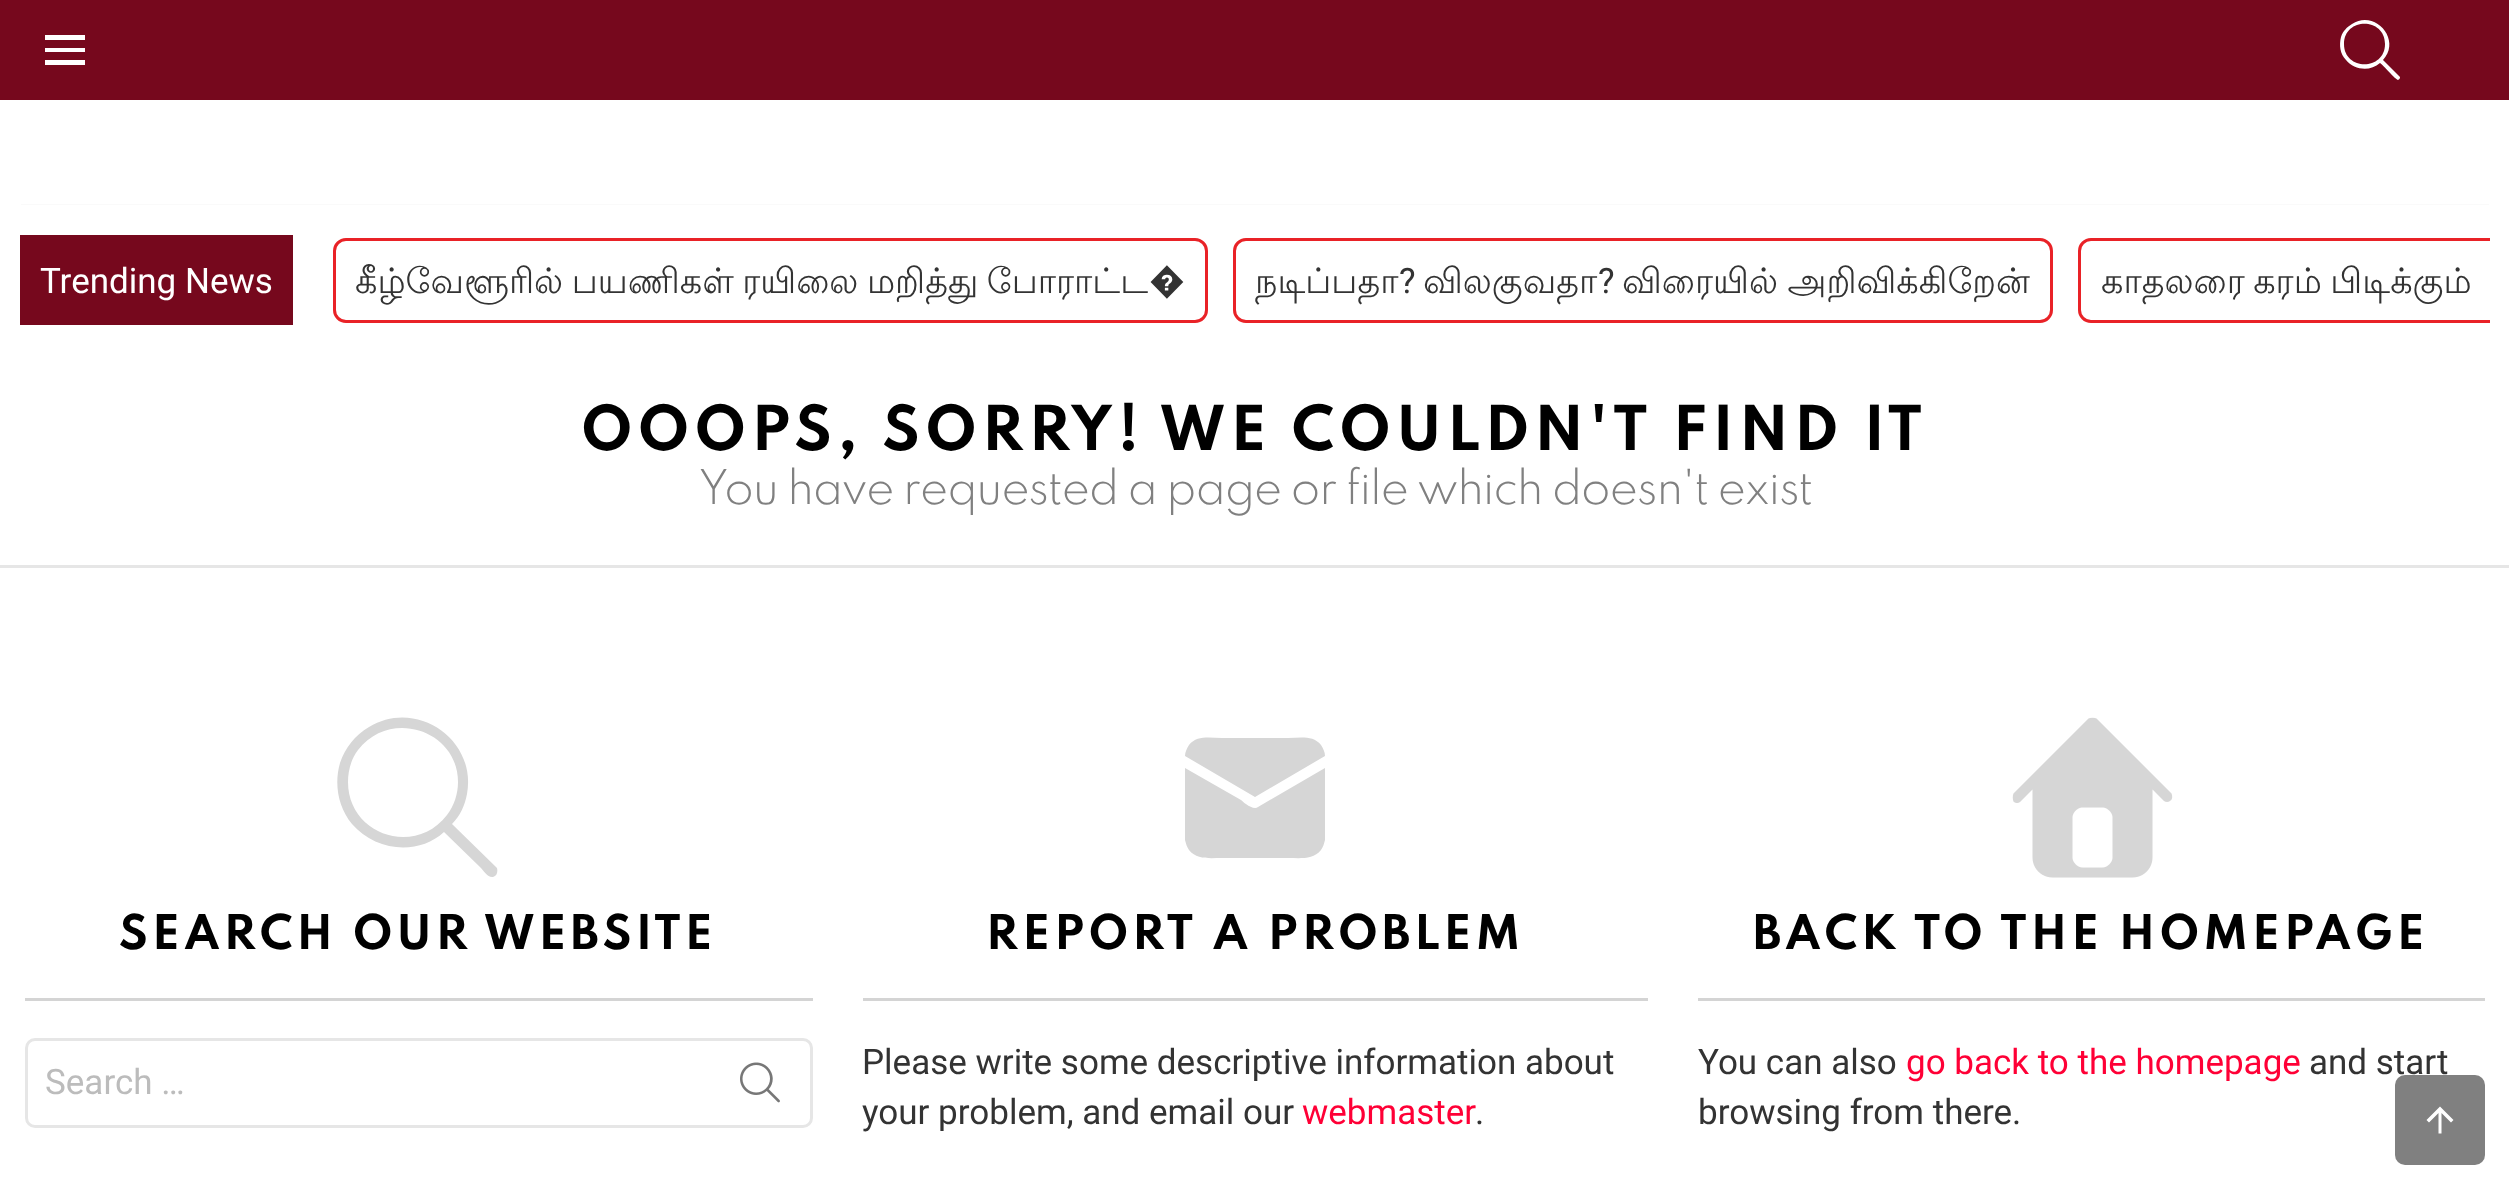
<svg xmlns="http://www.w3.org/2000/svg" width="2509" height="1189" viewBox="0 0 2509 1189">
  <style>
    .t1 { font: 35px Roboto; fill: #fff; }
    .t2 { font: 35px Lohit Tamil; fill: #333; }
    .t3 { font: 35px Roboto; fill: #333; }
    .t4 { font: bold 55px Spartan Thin; letter-spacing: 5.3px; fill: #000; }
    .t5 { font: 300 42.5px Spartan Thin; letter-spacing: -1.27px; fill: #808080; }
    .t6 { font: bold 42.5px Spartan Thin; letter-spacing: 4.1px; fill: #000; }
    .t7 { font: 35px Roboto; fill: #bcbcbc; }
    .t8 { font: 35px Roboto; fill: #ff0036; }
  </style>
  <defs>
    <clipPath id="clip1"><rect x="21" y="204" width="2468" height="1"/></clipPath>
    <clipPath id="clip2"><rect x="313" y="235" width="2177" height="90"/></clipPath>
  </defs>
  <rect width="100%" height="100%" fill="#fff"/>
  <rect x="0" y="0" width="2509" height="100" fill="#76081d"/>
  <path d="M45 35H85V40H45ZM45 48H85V52H45ZM45 60H85V65H45Z" fill="#fff"/>
  <path d="M2400 77L2383 60C2402 40 2375 9 2352 24C2347 27 2343 31 2341 37C2339 45 2340 54 2346 60C2354 70 2370 72 2380 63C2383 65 2396 80 2398 80C2400 79 2400 78 2400 77ZM2344 44C2344 17 2385 17 2385 44C2385 71 2344 71 2344 44Z" fill="#fff"/>
  <g clip-path="url(#clip1)">
    <rect x="0" y="220" width="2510" height="150" fill="#00000029" filter="blur(14px)"/>
  </g>
  <rect x="20" y="235" width="273" height="90" fill="#76081d"/>
  <text x="40" y="293" class="t1">Trending News</text>
  <rect x="334.5" y="239.5" width="872" height="82" rx="11.5" fill="none" stroke="#e92227" stroke-width="3"/>
  <text x="355" y="293" word-spacing="-2" class="t2">கீழ்வேளூரில் பயணிகள் ரயிலை மறித்து போராட்ட</text>
  <text x="1149" y="293" class="t3">�</text>
  <rect x="1234.5" y="239.5" width="817" height="82" rx="11.5" fill="none" stroke="#e92227" stroke-width="3"/>
  <text x="1255" y="293" class="t2">நடிப்பதா</text>
  <text x="1399" y="293" class="t3">?</text>
  <text x="1423" y="293" class="t2">விலகுவதா</text>
  <text x="1598" y="293" class="t3">?</text>
  <text x="1622" y="293" word-spacing="-1" class="t2">விரையில் அறிவிக்கிறேன்</text>
  <g clip-path="url(#clip2)">
    <rect x="2079.5" y="239.5" width="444" height="82" rx="11.5" fill="none" stroke="#e92227" stroke-width="3"/>
  </g>
  <text x="2101" y="293" word-spacing="-2" class="t2">காதலரை கரம் பிடிக்கும்</text>
  <rect x="0" y="355" width="2509" height="36" fill="#fff"/>
  <rect x="0" y="565" width="2509" height="3" fill="#e6e6e6"/>
  <text x="581" y="450" class="t4">OOOPS, SORRY! WE COULDN'T FIND IT</text>
  <text x="698" y="504" class="t5">You have requested a page or file which doesn't exist</text>
  <path d="M497 868L452 824C460 816 465 805 467 794C477 739 416 698 369 727C355 735 345 748 340 763C334 784 338 807 352 824C375 851 418 856 444 832L481 868C483 870 488 878 493 877C497 876 498 872 497 868ZM348 782C348 771 351 759 358 750C390 708 458 730 458 782C458 794 454 806 447 815C415 857 348 835 348 782Z" fill="#d6d6d6"/>
  <text x="119" y="949" class="t6">SEARCH OUR WEBSITE</text>
  <rect x="25" y="998" width="788" height="3" fill="#d4d4d4"/>
  <rect x="26.5" y="1039.5" width="785" height="87" rx="8.5" fill="none" stroke="#e6e6e6" stroke-width="3"/>
  <text x="45" y="1094" class="t7">Search …</text>
  <image x="740" y="1062" width="40" height="41" href="images/1.png"/>
  <path d="M1255 797L1325 756C1325 752 1323 748 1321 745C1313 735 1300 738 1288 738H1222C1210 738 1197 735 1189 745C1187 748 1185 752 1185 756ZM1258 807C1253 811 1242 801 1241 800L1185 768V840C1186 844 1187 847 1189 850C1197 860 1210 858 1222 858H1288C1300 858 1313 860 1321 850C1323 847 1324 844 1325 840V768Z" fill="#d6d6d6"/>
  <text x="986" y="949" class="t6">REPORT A PROBLEM</text>
  <rect x="863" y="998" width="785" height="3" fill="#d4d4d4"/>
  <text x="862" y="1074" class="t3">Please write some descriptive information about</text>
  <text x="862" y="1124" class="t3">your problem, and email our</text>
  <text x="1302" y="1124" class="t8">webmaster</text>
  <text x="1475" y="1124" class="t3">.</text>
  <image x="2012" y="717" width="161" height="161" href="images/2.png"/>
  <text x="1753" y="949" class="t6">BACK TO THE HOMEPAGE</text>
  <rect x="1698" y="998" width="787" height="3" fill="#d4d4d4"/>
  <text x="1698" y="1074" class="t3">You can also</text>
  <text x="1906" y="1074" class="t8">go back to the homepage</text>
  <text x="2309" y="1074" class="t3">and start</text>
  <text x="1698" y="1124" class="t3">browsing from there.</text>
  <rect x="2395" y="1075" width="90" height="90" rx="10" fill="#808080"/>
  <path d="M2441.5 1133.5V1113L2451 1122.5L2453.5 1120L2440 1106.5L2426.5 1120L2429 1122.5L2438.5 1113V1133.5Z" fill="#fff"/>
</svg>
